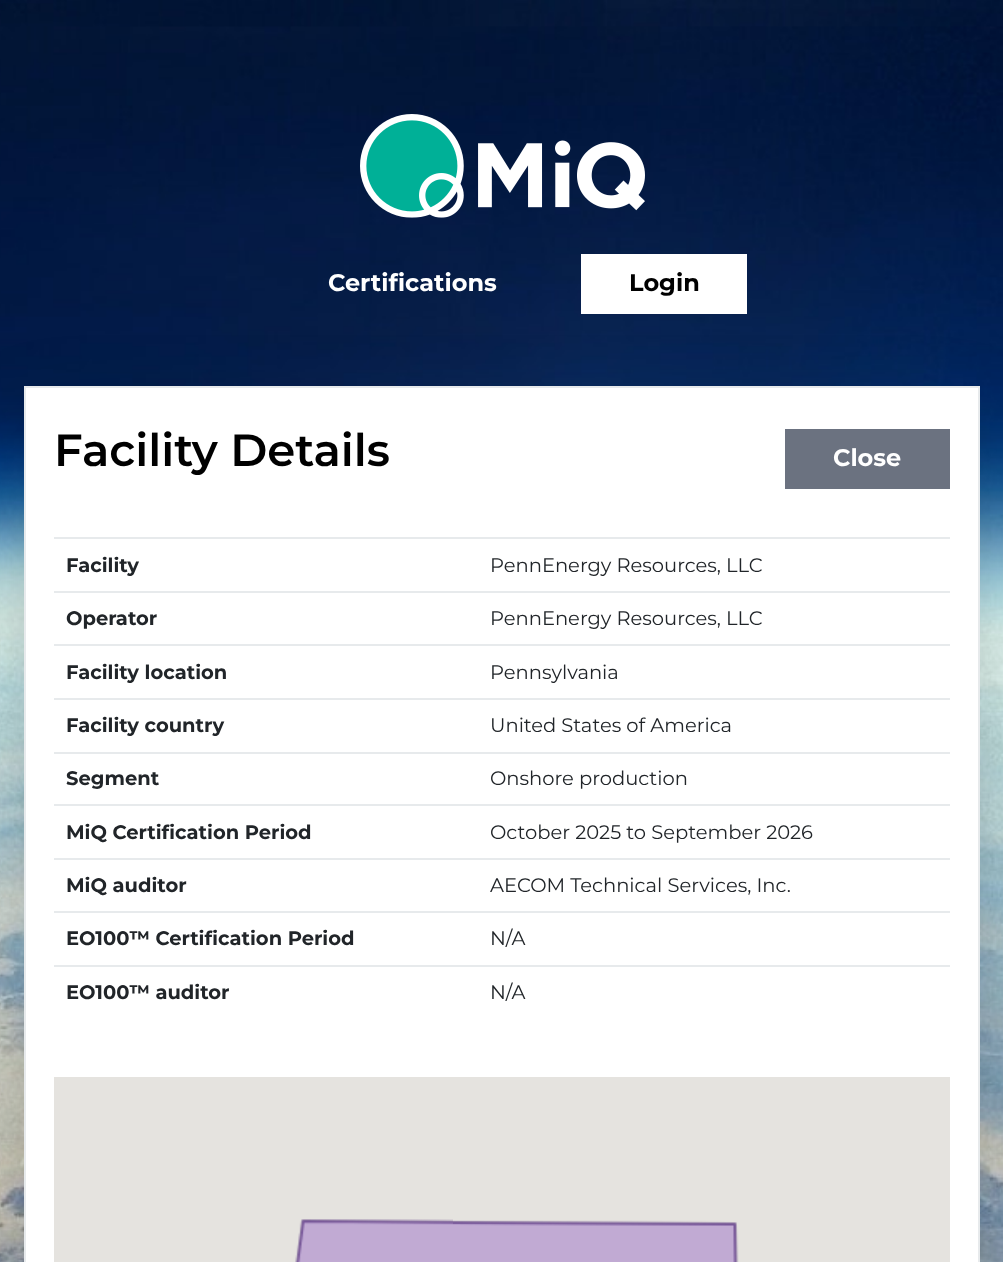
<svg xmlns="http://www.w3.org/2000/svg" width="1003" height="1262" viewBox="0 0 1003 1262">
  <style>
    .t1 { font: bold 24px Montserrat; fill: #fff; }
    .t2 { font: bold 24px Montserrat; fill: #000; }
    .t3 { font: 600 45px Montserrat; fill: #000; }
    .t4 { font: bold 19.5px Montserrat; fill: #212529; }
    .t5 { font: 19.5px Montserrat; fill: #212529; }
  </style>
  <rect width="100%" height="100%" fill="#fff"/>
  <image x="0" y="0" width="1003" height="1262" href="images/1.png"/>
  <image x="360" y="114" width="285" height="104" href="images/2.png"/>
  <text x="328" y="291" class="t1">Certifications</text>
  <rect x="24" y="410" width="956" height="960" fill="#0000002e" filter="blur(36px)"/>
  <rect x="581" y="254" width="166" height="60" fill="#fff"/>
  <text x="629" y="291" class="t2">Login</text>
  <rect x="25" y="387" width="954" height="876" fill="#fff" stroke="#e7eaec" stroke-width="2"/>
  <text x="54" y="466" class="t3">Facility Details</text>
  <rect x="785" y="429" width="165" height="60" fill="#6b7280"/>
  <text x="833" y="466" class="t1">Close</text>
  <text x="66" y="572" class="t4">Facility</text>
  <rect x="54" y="537" width="896" height="2" fill="#e7eaec"/>
  <text x="490" y="572" class="t5">PennEnergy Resources, LLC</text>
  <text x="66" y="625" class="t4">Operator</text>
  <rect x="54" y="591" width="896" height="2" fill="#e7eaec"/>
  <text x="490" y="625" class="t5">PennEnergy Resources, LLC</text>
  <text x="66" y="679" class="t4">Facility location</text>
  <rect x="54" y="644" width="896" height="2" fill="#e7eaec"/>
  <text x="490" y="679" class="t5">Pennsylvania</text>
  <text x="66" y="732" class="t4">Facility country</text>
  <rect x="54" y="698" width="896" height="2" fill="#e7eaec"/>
  <text x="490" y="732" class="t5">United States of America</text>
  <text x="66" y="785" class="t4">Segment</text>
  <rect x="54" y="752" width="896" height="2" fill="#e7eaec"/>
  <text x="490" y="785" class="t5">Onshore production</text>
  <text x="66" y="839" class="t4">MiQ Certification Period</text>
  <rect x="54" y="804" width="896" height="2" fill="#e7eaec"/>
  <text x="490" y="839" class="t5">October 2025 to September 2026</text>
  <text x="66" y="892" class="t4">MiQ auditor</text>
  <rect x="54" y="858" width="896" height="2" fill="#e7eaec"/>
  <text x="490" y="892" class="t5">AECOM Technical Services, Inc.</text>
  <text x="66" y="945" class="t4">EO100™ Certification Period</text>
  <rect x="54" y="911" width="896" height="2" fill="#e7eaec"/>
  <text x="490" y="945" class="t5">N/A</text>
  <text x="66" y="999" class="t4">EO100™ auditor</text>
  <rect x="54" y="965" width="896" height="2" fill="#e7eaec"/>
  <text x="490" y="999" class="t5">N/A</text>
  <rect x="54" y="1077" width="896" height="185" fill="#e5e3df"/>
  <image x="295" y="1219" width="158" height="43" href="images/3.png"/>
  <image x="453" y="1220" width="286" height="42" href="images/4.png"/>
</svg>
